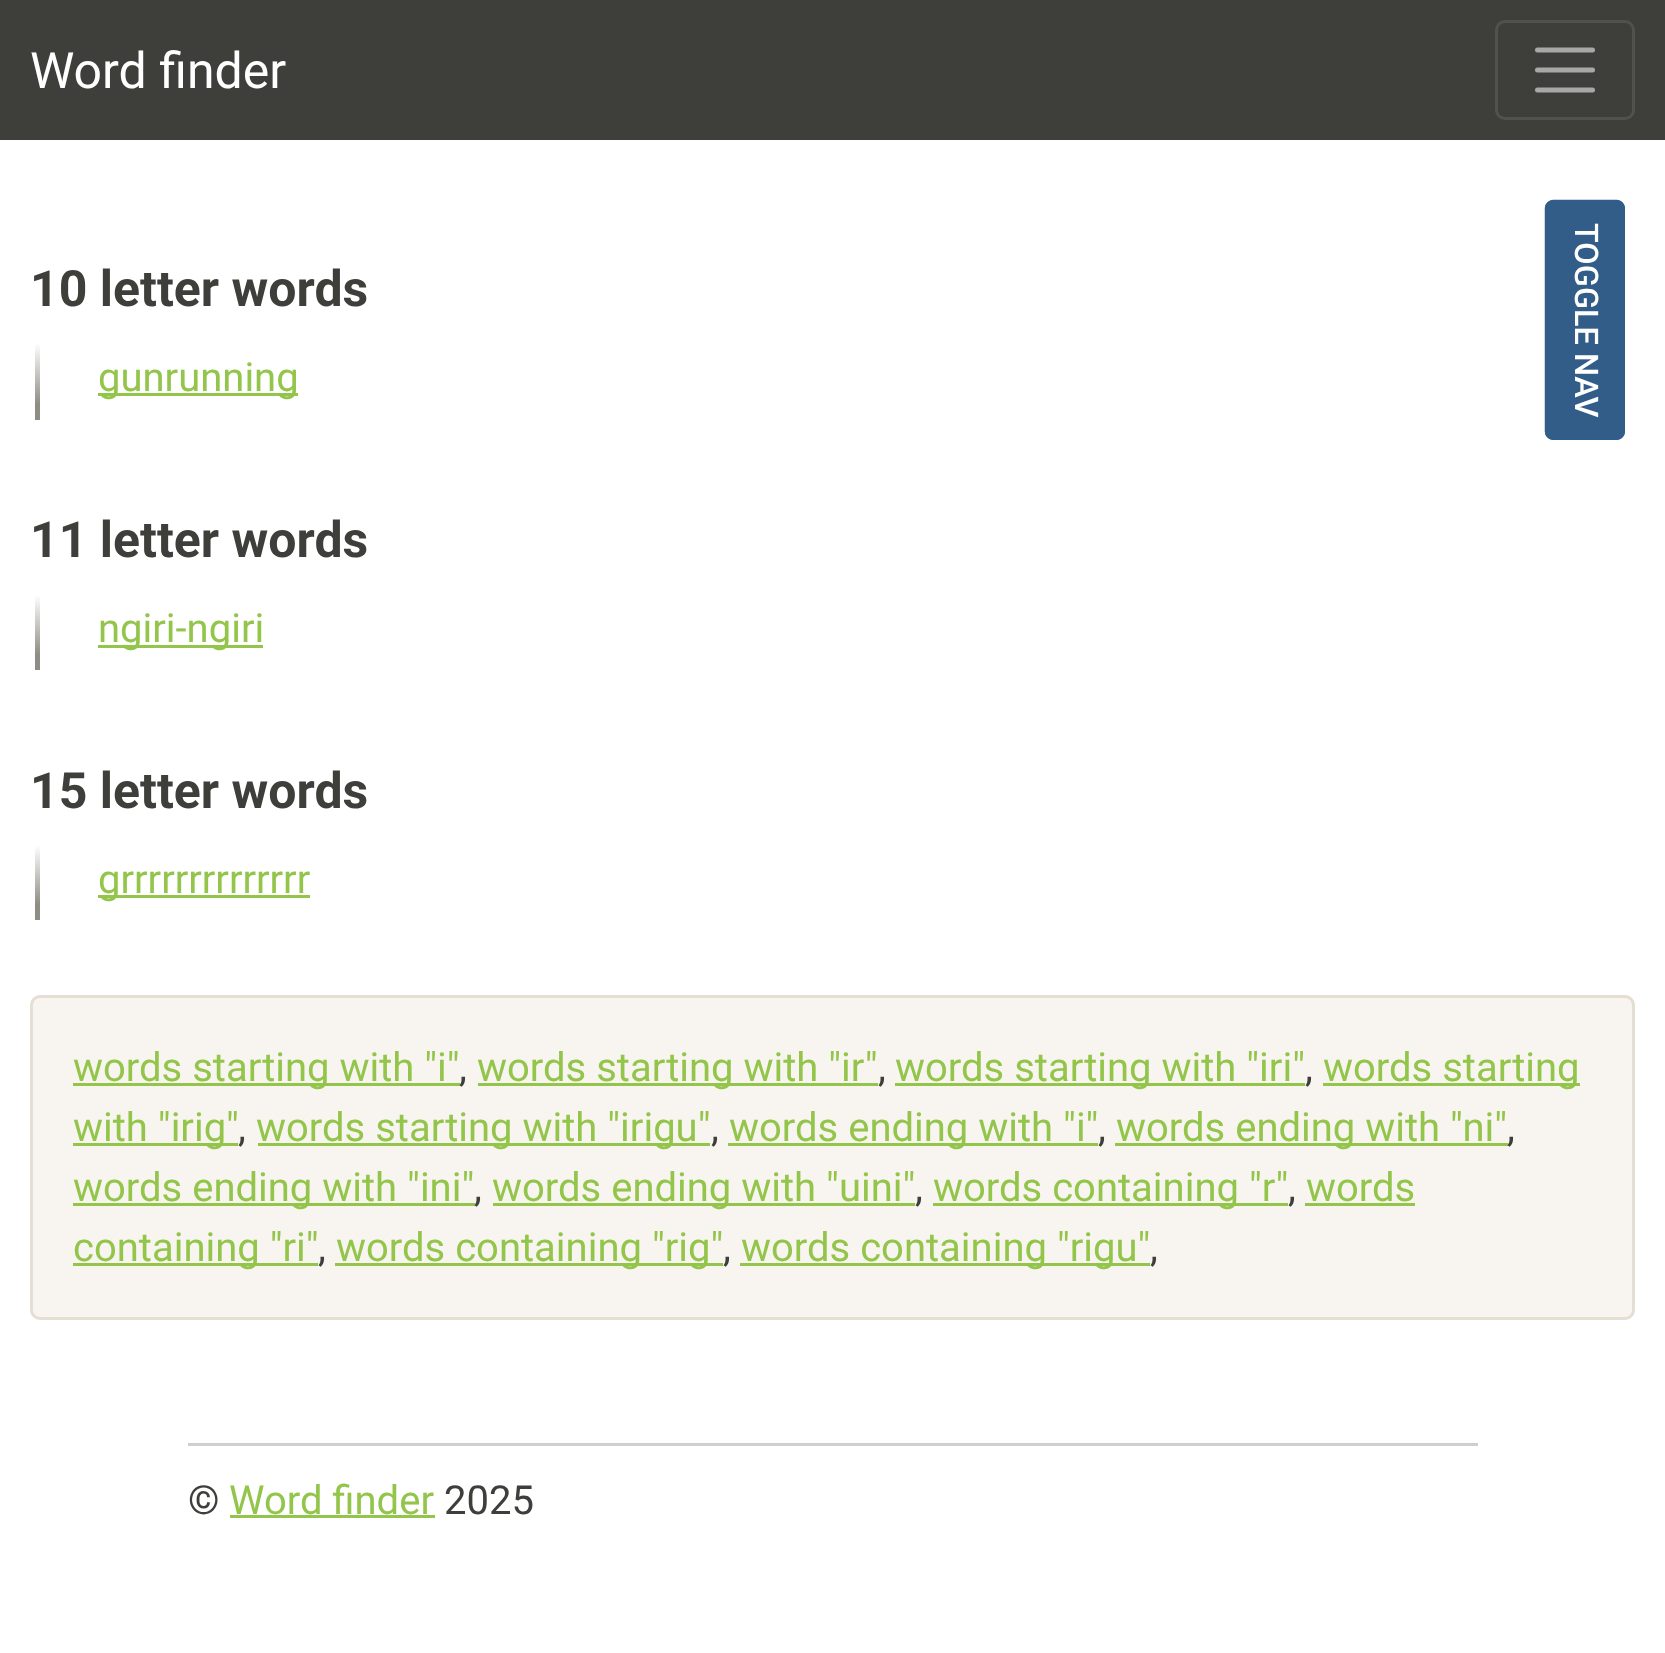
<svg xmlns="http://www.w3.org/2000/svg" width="1665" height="1653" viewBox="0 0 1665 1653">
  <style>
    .t1 { font: 50px Roboto; fill: #fff; }
    .t2 { font: bold 50px Roboto; fill: #3e3f3a; }
    .t3 { font: 40px Roboto; fill: #93c54b; }
    .t4 { font: 500 32.5px Roboto; fill: #fff; }
    .t5 { font: 40px Roboto; fill: #3e3f3a; }
  </style>
  <defs>
    <linearGradient id="g1" gradientUnits="userSpaceOnUse" x1="37" y1="343" x2="38" y2="425"><stop offset="0" stop-color="#fff"/><stop offset="0.75" stop-color="#8e8c84"/></linearGradient>
    <linearGradient id="g2" gradientUnits="userSpaceOnUse" x1="37" y1="595" x2="38" y2="675"><stop offset="0" stop-color="#fff"/><stop offset="0.75" stop-color="#8e8c84"/></linearGradient>
    <linearGradient id="g3" gradientUnits="userSpaceOnUse" x1="37" y1="845" x2="38" y2="925"><stop offset="0" stop-color="#fff"/><stop offset="0.75" stop-color="#8e8c84"/></linearGradient>
  </defs>
  <rect width="100%" height="100%" fill="#fff"/>
  <rect x="0" y="0" width="1665" height="140" fill="#3e3f3a"/>
  <text x="30" y="88" class="t1">Word finder</text>
  <rect x="1496.5" y="21.5" width="137" height="97" rx="8.5" fill="none" stroke="#51524e" stroke-width="3"/>
  <path d="M1537.5 50H1592.5M1537.5 70H1592.5M1537.5 90H1592.5" fill="none" stroke="#a8a9a6" stroke-width="5" stroke-linecap="round"/>
  <text x="30" y="306" class="t2">10 letter words</text>
  <rect x="35" y="343" width="5" height="77" fill="url(#g1)"/>
  <rect x="98" y="393" width="200" height="3" fill="#93c54b"/>
  <text x="98" y="391" class="t3">gunrunning</text>
  <text x="30" y="557" class="t2">11 letter words</text>
  <rect x="35" y="595" width="5" height="75" fill="url(#g2)"/>
  <rect x="98" y="645" width="165" height="3" fill="#93c54b"/>
  <text x="98" y="642" class="t3">ngiri-ngiri</text>
  <text x="30" y="808" class="t2">15 letter words</text>
  <rect x="35" y="845" width="5" height="75" fill="url(#g3)"/>
  <rect x="98" y="895" width="212" height="3" fill="#93c54b"/>
  <text x="98" y="893" class="t3">grrrrrrrrrrrrrr</text>
  <path d="M1625 208V432C1625 436 1621 440 1617 440H1553C1549 440 1545 436 1545 432V208C1545 204 1549 200 1553 200H1617C1621 200 1625 204 1625 208Z" fill="#325d88"/>
  <path d="M1623.5 208V431.5C1623.5 435.5 1620.5 438.5 1617 438.5H1553C1549.5 438.5 1546 435.5 1546 431.5V208C1546 204.5 1549.5 201 1553 201H1617C1620.5 201 1623.5 204.5 1623.5 208Z" fill="none" stroke="#325d88" stroke-width="2.5"/>
  <text x="1575" y="223" transform="rotate(90 1575 223)" class="t4">TOGGLE NAV</text>
  <rect x="30" y="995" width="1605" height="325" rx="10" fill="#f8f5f0"/>
  <rect x="31.5" y="996.5" width="1602" height="322" rx="8.5" fill="none" stroke="#dfd7cabf" stroke-width="3"/>
  <rect x="73" y="1083" width="387" height="3" fill="#93c54b"/>
  <text x="73" y="1081" class="t3">words starting with "i"</text>
  <text x="459" y="1081" class="t5">,</text>
  <rect x="478" y="1083" width="400" height="3" fill="#93c54b"/>
  <text x="477" y="1081" class="t3">words starting with "ir"</text>
  <text x="878" y="1081" class="t5">,</text>
  <rect x="895" y="1083" width="410" height="3" fill="#93c54b"/>
  <text x="895" y="1081" class="t3">words starting with "iri"</text>
  <text x="1305" y="1081" class="t5">,</text>
  <rect x="1323" y="1083" width="257" height="3" fill="#93c54b"/>
  <text x="1323" y="1081" class="t3">words starting</text>
  <rect x="73" y="1143" width="165" height="3" fill="#93c54b"/>
  <text x="73" y="1141" class="t3">with "irig"</text>
  <text x="238" y="1141" class="t5">,</text>
  <rect x="258" y="1143" width="452" height="3" fill="#93c54b"/>
  <text x="256" y="1141" class="t3">words starting with "irigu"</text>
  <text x="711" y="1141" class="t5">,</text>
  <rect x="728" y="1143" width="370" height="3" fill="#93c54b"/>
  <text x="729" y="1141" class="t3">words ending with "i"</text>
  <text x="1098" y="1141" class="t5">,</text>
  <rect x="1115" y="1143" width="393" height="3" fill="#93c54b"/>
  <text x="1116" y="1141" class="t3">words ending with "ni"</text>
  <text x="1507" y="1141" class="t5">,</text>
  <rect x="73" y="1203" width="402" height="3" fill="#93c54b"/>
  <text x="73" y="1201" class="t3">words ending with "ini"</text>
  <text x="474" y="1201" class="t5">,</text>
  <rect x="493" y="1203" width="422" height="3" fill="#93c54b"/>
  <text x="492" y="1201" class="t3">words ending with "uini"</text>
  <text x="915" y="1201" class="t5">,</text>
  <rect x="933" y="1203" width="355" height="3" fill="#93c54b"/>
  <text x="933" y="1201" class="t3">words containing "r"</text>
  <text x="1288" y="1201" class="t5">,</text>
  <text x="1306" y="1201" class="t3">words</text>
  <rect x="1305" y="1203" width="110" height="3" fill="#93c54b"/>
  <rect x="73" y="1263" width="245" height="3" fill="#93c54b"/>
  <text x="73" y="1261" class="t3">containing "ri"</text>
  <text x="318" y="1261" class="t5">,</text>
  <rect x="335" y="1263" width="388" height="3" fill="#93c54b"/>
  <text x="336" y="1261" class="t3">words containing "rig"</text>
  <text x="723" y="1261" class="t5">,</text>
  <rect x="740" y="1263" width="410" height="3" fill="#93c54b"/>
  <text x="741" y="1261" class="t3">words containing "rigu"</text>
  <text x="1150" y="1261" class="t5">,</text>
  <rect x="188" y="1443" width="1290" height="3" fill="#cfcfce"/>
  <text x="188" y="1514" class="t5">©</text>
  <text x="229" y="1514" class="t3">Word finder</text>
  <rect x="230" y="1515" width="205" height="3" fill="#93c54b"/>
  <text x="444" y="1514" class="t5">2025</text>
</svg>
